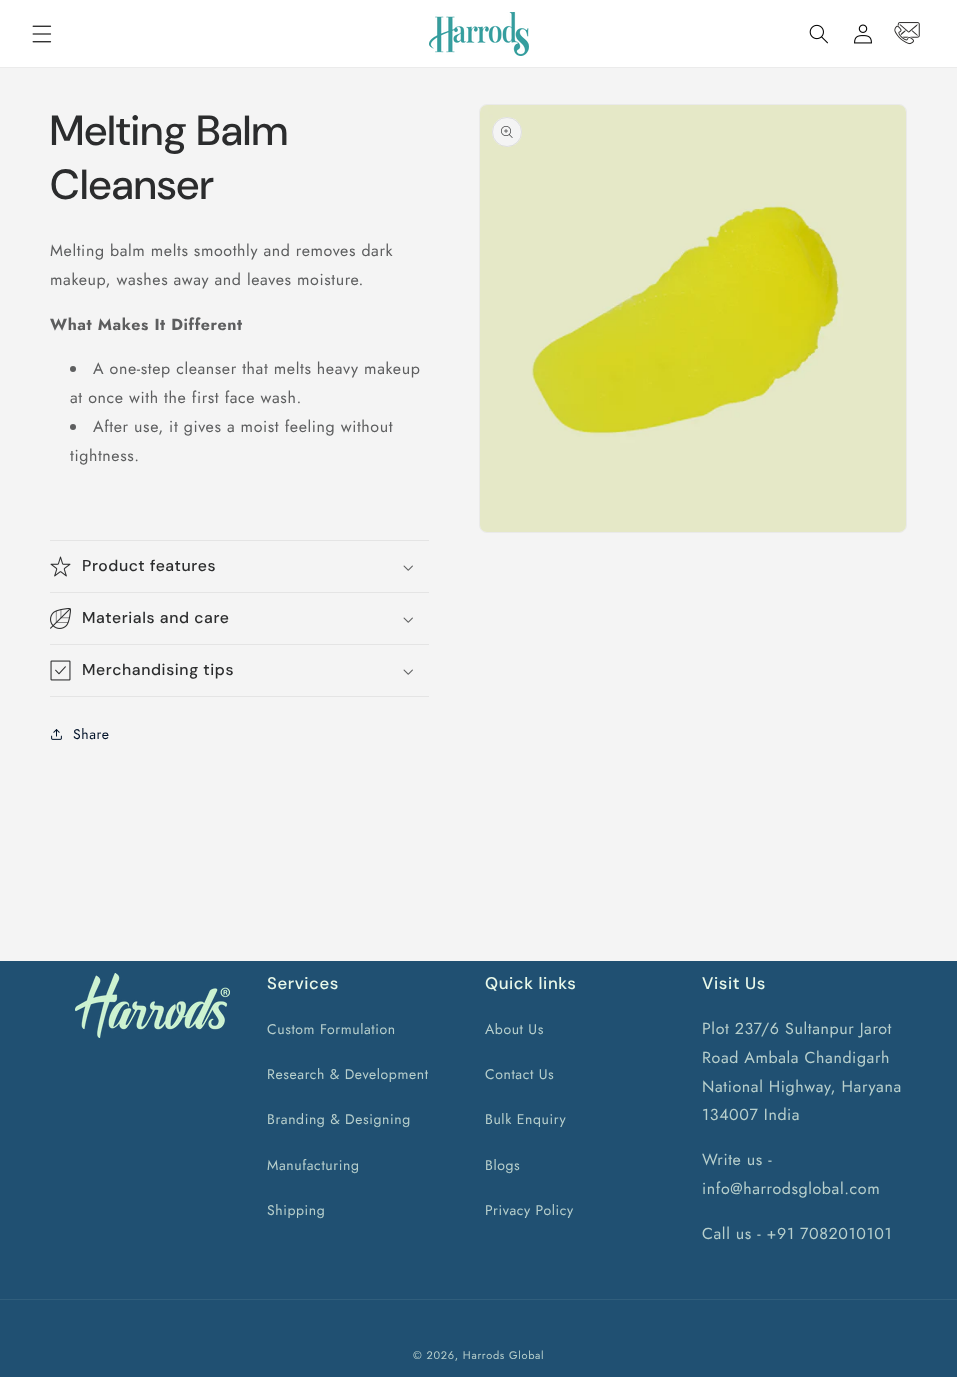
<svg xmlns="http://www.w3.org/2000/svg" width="957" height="1377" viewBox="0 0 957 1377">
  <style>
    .t1 { font: 500 42px DM Sans; letter-spacing: 0.6px; fill: #2b2c2d; }
    .t2 { font: 16px Jost; letter-spacing: 0.6px; fill: #5d5e5f; }
    .t3 { font: bold 16px Jost; letter-spacing: 0.6px; fill: #5d5e5f; }
    .t4 { font: 500 15.75px 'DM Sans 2'; letter-spacing: 0.6px; fill: #2b2c2d; }
    .t5 { font: 14px Jost; letter-spacing: 0.6px; fill: #001128; }
    .t6 { font: 500 16.75px 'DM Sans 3'; letter-spacing: 0.6px; fill: #e9f9ea; }
    .t7 { font: 14px Jost; letter-spacing: 0.6px; fill: #b7cfcc; }
    .t8 { font: 16px Jost; letter-spacing: 0.6px; fill: #b7cfcc; }
    .t9 { font: 11px Jost; letter-spacing: 0.7px; fill: #b7cfcc; }
  </style>
  <rect width="100%" height="100%" fill="#f4f4f4"/>
  <rect x="0" y="0" width="957" height="67" fill="#fff"/>
  <rect x="0" y="67" width="957" height="1" fill="#ebebeb"/>
  <image x="32" y="25" width="20" height="18" href="images/1.png"/>
  <image x="429" y="12" width="100" height="44" href="images/2.png"/>
  <image x="809" y="24" width="19" height="20" href="images/3.png"/>
  <image x="854" y="24" width="18" height="20" href="images/4.png"/>
  <image x="894" y="22" width="26" height="23" href="images/5.png"/>
  <text x="50" y="145" class="t1">Melting Balm</text>
  <text x="50" y="199" class="t1">Cleanser</text>
  <text x="50" y="256" class="t2">Melting balm melts smoothly and removes dark</text>
  <text x="50" y="285" class="t2">makeup, washes away and leaves moisture.</text>
  <text x="50" y="330" class="t3">What Makes It Different</text>
  <circle cx="73" cy="369" r="3" fill="#5d5e5f"/>
  <text x="93" y="374" class="t2">A one-step cleanser that melts heavy makeup</text>
  <text x="70" y="403" class="t2">at once with the first face wash.</text>
  <circle cx="73" cy="427" r="3" fill="#5d5e5f"/>
  <text x="93" y="432" class="t2">After use, it gives a moist feeling without</text>
  <text x="70" y="461" class="t2">tightness.</text>
  <rect x="50" y="540" width="379" height="1" fill="#e4e4e4"/>
  <rect x="50" y="592" width="379" height="1" fill="#e4e4e4"/>
  <image x="50" y="556" width="21" height="21" href="images/6.png"/>
  <text x="82" y="571" class="t4">Product features</text>
  <image x="403" y="565" width="10" height="6" href="images/7.png"/>
  <rect x="50" y="644" width="379" height="1" fill="#e4e4e4"/>
  <image x="50" y="608" width="21" height="21" href="images/8.png"/>
  <text x="82" y="623" class="t4">Materials and care</text>
  <image x="403" y="617" width="10" height="6" href="images/7.png"/>
  <rect x="50" y="696" width="379" height="1" fill="#e4e4e4"/>
  <image x="50" y="660" width="21" height="21" href="images/9.png"/>
  <text x="82" y="675" class="t4">Merchandising tips</text>
  <image x="403" y="669" width="10" height="6" href="images/7.png"/>
  <image x="51" y="729" width="11" height="11" href="images/10.png"/>
  <text x="73" y="739" class="t5">Share</text>
  <rect x="479.5" y="104.5" width="427" height="428" rx="7.5" fill="none" stroke="#eaeaea"/>
  <image x="480" y="105" width="426" height="427" href="images/11.png"/>
  <circle cx="507" cy="132" r="15" fill="#f4f4f4"/>
  <circle cx="507" cy="132" r="14.5" fill="none" stroke="#2b2c2d1a"/>
  <image x="501" y="126" width="12" height="12" href="images/12.png"/>
  <rect x="0" y="961" width="957" height="416" fill="#205072"/>
  <image x="75" y="973" width="155" height="65" href="images/13.png"/>
  <text x="267" y="989" class="t6">Services</text>
  <text x="267" y="1034" class="t7">Custom Formulation</text>
  <text x="267" y="1079" class="t7">Research &amp; Development</text>
  <text x="267" y="1124" class="t7">Branding &amp; Designing</text>
  <text x="267" y="1170" class="t7">Manufacturing</text>
  <text x="267" y="1215" class="t7">Shipping</text>
  <text x="485" y="989" class="t6">Quick links</text>
  <text x="485" y="1034" class="t7">About Us</text>
  <text x="485" y="1079" class="t7">Contact Us</text>
  <text x="485" y="1124" class="t7">Bulk Enquiry</text>
  <text x="485" y="1170" class="t7">Blogs</text>
  <text x="485" y="1215" class="t7">Privacy Policy</text>
  <text x="702" y="989" class="t6">Visit Us</text>
  <text x="702" y="1034" class="t8">Plot 237/6 Sultanpur Jarot</text>
  <text x="702" y="1063" class="t8">Road Ambala Chandigarh</text>
  <text x="702" y="1092" class="t8">National Highway, Haryana</text>
  <text x="702" y="1120" class="t8">134007 India</text>
  <text x="702" y="1165" class="t8">Write us -</text>
  <text x="702" y="1194" class="t8">info@harrodsglobal.com</text>
  <text x="702" y="1239" class="t8">Call us - +91 7082010101</text>
  <rect x="0" y="1299" width="957" height="1" fill="#305e7c"/>
  <text x="413" y="1359" class="t9">© 2026, Harrods Global</text>
</svg>
